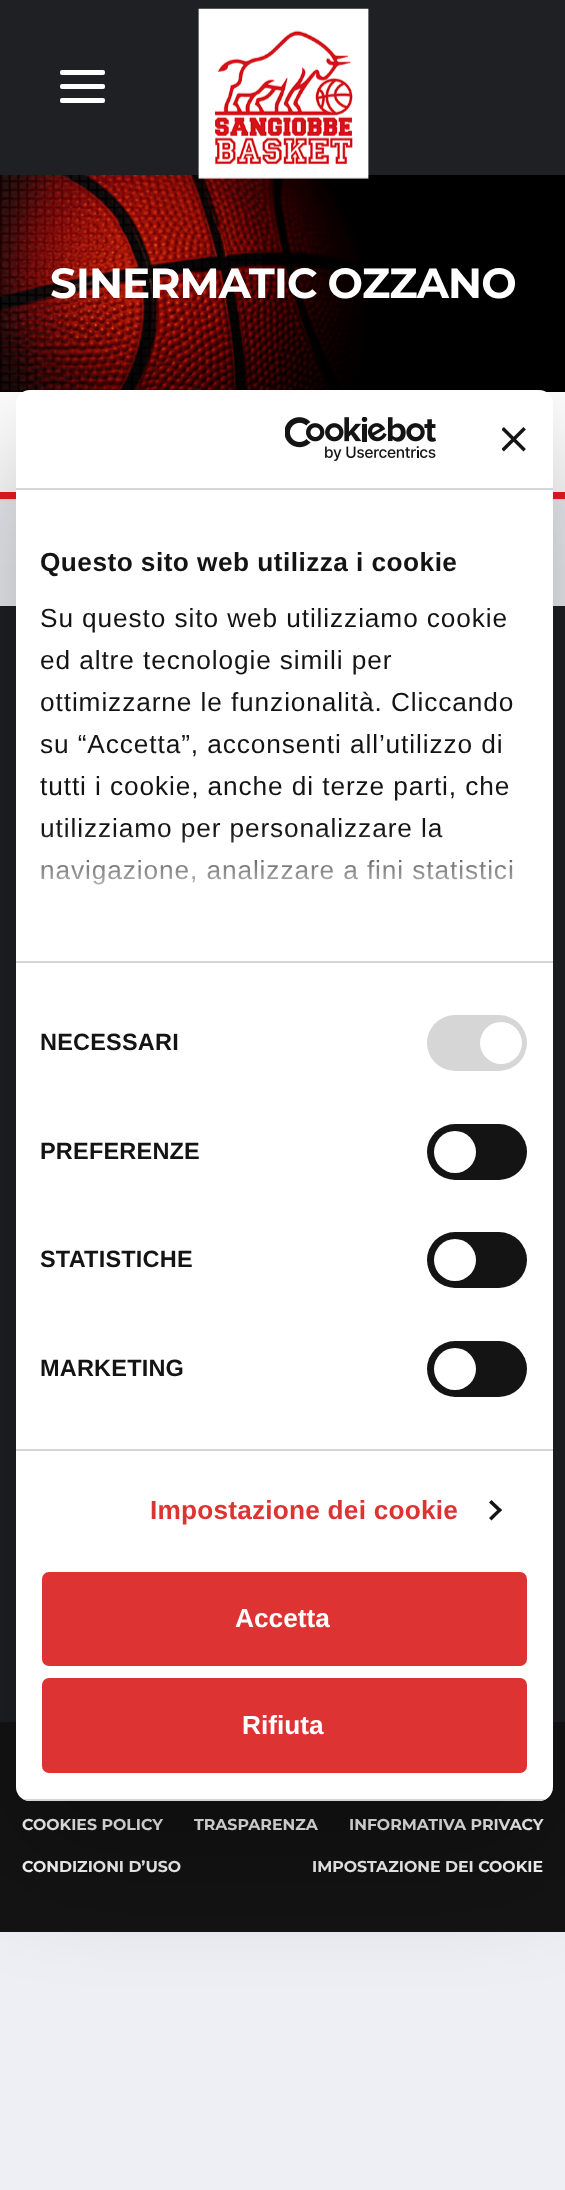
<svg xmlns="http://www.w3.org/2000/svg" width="565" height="2190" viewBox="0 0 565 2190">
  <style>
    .t1 { font: bold 42px Montserrat; letter-spacing: -0.8px; fill: #fff; }
    .t2 { font: bold 15.75px Montserrat; fill: #fff; }
    .t3 { font: bold 26.25px Liberation Sans; letter-spacing: 0.45px; fill: #141414; }
    .t4 { font: 26.25px Liberation Sans; letter-spacing: 0.9px; fill: #141414; }
    .t5 { font: bold 23.5px Liberation Sans; letter-spacing: 0.2px; fill: #141414; }
    .t6 { font: bold 26.25px Liberation Sans; letter-spacing: 0.2px; fill: #d33; }
    .t7 { font: bold 26.25px Liberation Sans; fill: #fff; }
  </style>
  <defs>
    <linearGradient id="g1" gradientUnits="userSpaceOnUse" x1="272" y1="961" x2="272" y2="830"><stop offset="0" stop-color="#fff"/><stop offset="0.5" stop-color="#fff" stop-opacity="0.8"/><stop offset="1" stop-color="#fff" stop-opacity="0"/></linearGradient>
    <clipPath id="clip1"><rect x="16" y="390" width="537" height="1411" rx="14"/></clipPath>
  </defs>
  <rect width="100%" height="100%" fill="#edeff4"/>
  <rect x="0" y="0" width="565" height="175" fill="#1e2024"/>
  <rect x="60" y="70" width="45" height="5" rx="2" fill="#fff"/>
  <rect x="60" y="84" width="45" height="5" rx="2" fill="#fff"/>
  <rect x="60" y="98" width="45" height="5" rx="2" fill="#fff"/>
  <rect x="0" y="175" width="565" height="217" fill="#000"/>
  <image x="0" y="175" width="365" height="217" href="images/2.png"/>
  <image x="1" y="175" width="261" height="216" href="images/3.png"/>
  <image x="198" y="8" width="171" height="171" href="images/1.png"/>
  <text x="50" y="298" class="t1">SINERMATIC OZZANO</text>
  <rect x="0" y="392" width="565" height="100" fill="#fff"/>
  <rect x="0" y="499" width="565" height="2" fill="#e4e7ed"/>
  <rect x="0" y="492" width="565" height="7" fill="#ed1b24"/>
  <rect x="0" y="606" width="565" height="1116" fill="#1e2024"/>
  <rect x="0" y="1722" width="565" height="210" fill="#141414"/>
  <text x="22" y="1830" class="t2">COOKIES POLICY</text>
  <text x="194" y="1830" class="t2">TRASPARENZA</text>
  <text x="349" y="1830" class="t2">INFORMATIVA PRIVACY</text>
  <text x="22" y="1872" class="t2">CONDIZIONI D’USO</text>
  <text x="312" y="1872" class="t2">IMPOSTAZIONE DEI COOKIE</text>
  <rect x="16" y="446" width="537" height="1411" rx="14" fill="#0000004d" filter="blur(59.5px)"/>
  <rect x="16" y="390" width="537" height="1411" rx="14" fill="#fff"/>
  <rect x="16" y="488" width="537" height="2" fill="#d6d6d6"/>
  <image x="285" y="417" width="151" height="44" href="images/4.png"/>
  <image x="502" y="427" width="24" height="25" href="images/5.png"/>
  <rect x="16" y="961" width="537" height="2" fill="#d6d6d6"/>
  <text x="40" y="571" class="t3">Questo sito web utilizza i cookie</text>
  <text x="40" y="627" class="t4">Su questo sito web utilizziamo cookie</text>
  <text x="40" y="669" class="t4">ed altre tecnologie simili per</text>
  <text x="40" y="711" class="t4">ottimizzarne le funzionalità. Cliccando</text>
  <text x="40" y="753" class="t4">su “Accetta”, acconsenti all’utilizzo di</text>
  <text x="40" y="795" class="t4">tutti i cookie, anche di terze parti, che</text>
  <text x="40" y="837" class="t4">utilizziamo per personalizzare la</text>
  <text x="40" y="879" class="t4">navigazione, analizzare a fini statistici</text>
  <rect x="42" y="832" width="470" height="53" fill="url(#g1)"/>
  <rect x="16" y="1449" width="537" height="2" fill="#d6d6d6"/>
  <text x="40" y="1050" class="t5">NECESSARI</text>
  <rect x="427" y="1015" width="100" height="56" rx="28" fill="#d6d6d6"/>
  <circle cx="501" cy="1043" r="21" fill="#fff"/>
  <text x="40" y="1159" class="t5">PREFERENZE</text>
  <rect x="427" y="1124" width="100" height="56" rx="28" fill="#141414"/>
  <circle cx="455" cy="1152" r="21" fill="#fff"/>
  <text x="40" y="1267" class="t5">STATISTICHE</text>
  <rect x="427" y="1232" width="100" height="56" rx="28" fill="#141414"/>
  <circle cx="455" cy="1260" r="21" fill="#fff"/>
  <text x="40" y="1376" class="t5">MARKETING</text>
  <rect x="427" y="1341" width="100" height="56" rx="28" fill="#141414"/>
  <circle cx="455" cy="1369" r="21" fill="#fff"/>
  <text x="150" y="1519" class="t6">Impostazione dei cookie</text>
  <path d="M491.5 1500L502 1510L499.5 1512.5L489 1502.5Z" fill="#141414"/>
  <path d="M499.5 1508L502 1510L491.5 1520.5L489 1518Z" fill="#141414"/>
  <g clip-path="url(#clip1)">
    <rect x="16" y="1799" width="537" height="2" fill="#d6d6d6"/>
  </g>
  <rect x="42" y="1572" width="485" height="94" rx="7" fill="#d33"/>
  <text x="235" y="1627" class="t7">Accetta</text>
  <rect x="42" y="1678" width="485" height="95" rx="7" fill="#d33"/>
  <text x="242" y="1734" class="t7">Rifiuta</text>
</svg>
